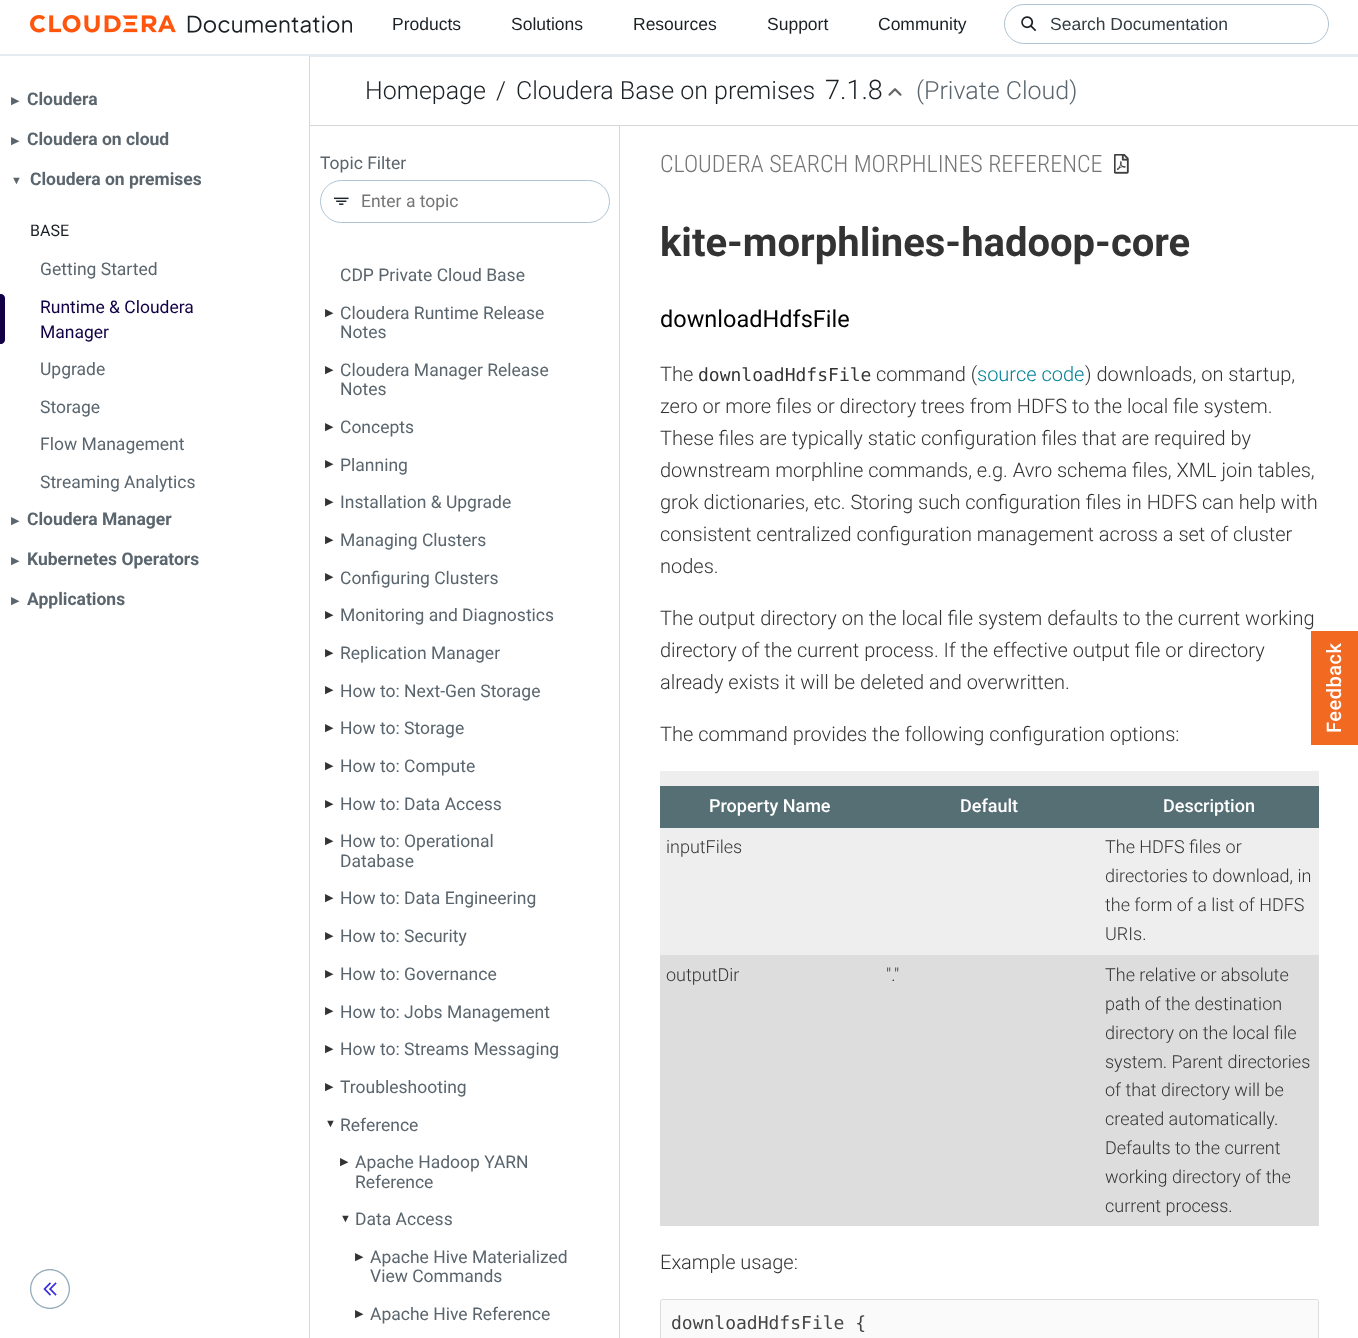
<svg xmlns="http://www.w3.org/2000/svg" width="1358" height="1338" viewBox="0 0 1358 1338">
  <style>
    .t1 { font: 17.5px Liberation Sans; fill: #1a2024; }
    .t2 { font: 17.5px Liberation Sans; fill: #333d43; }
    .t3 { font: 11px DejaVu Sans; fill: #5a656d; }
    .t4 { font: bold 17.5px Roboto; fill: #5a656d; }
    .t5 { font: 11px Liberation Sans; fill: #5a656d; }
    .t6 { font: 16px Roboto; fill: #1a2024; }
    .t7 { font: 17.5px Roboto; fill: #5a656d; }
    .t8 { font: 17.5px Roboto; fill: #120046; }
    .t9 { font: 300 25px Roboto; fill: #1a2024; }
    .t10 { font: 300 27px Roboto; fill: #1a2024; }
    .t11 { font: 300 25px Roboto; fill: #5a656d; }
    .t12 { font: 17.5px Roboto; fill: #757575; }
    .t13 { font: 11px DejaVu Sans; fill: #333; }
    .t14 { font: 11px Liberation Sans; fill: #333; }
    .t15 { font: 300 24px Roboto Condensed; fill: #757575; }
    .t16 { font: bold 40px Roboto; fill: #333; }
    .t17 { font: 23.5px Roboto; fill: #000; }
    .t18 { font: 300 20px Roboto; fill: #333; }
    .t19 { font: 18px DejaVu Sans Mono; fill: #333; }
    .t20 { font: 300 20px Roboto; fill: #008295; }
    .t21 { font: 500 18px Roboto; fill: #fff; }
    .t22 { font: 300 18px Roboto; fill: #333; }
    .t23 { font: 18px DejaVu Sans Mono; fill: #444; }
    .t24 { font: 500 20px Roboto; letter-spacing: 0.5px; fill: #fff; }
  </style>
  <defs>
    <clipPath id="clip1"><rect x="310" y="125" width="310" height="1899"/></clipPath>
  </defs>
  <rect width="100%" height="100%" fill="#fff"/>
  <rect x="0" y="54" width="1358" height="3" fill="#e5ecf1"/>
  <image x="30" y="15" width="322" height="18" href="images/1.png"/>
  <text x="392" y="30" class="t1">Products</text>
  <text x="511" y="30" class="t1">Solutions</text>
  <text x="633" y="30" class="t1">Resources</text>
  <text x="767" y="30" class="t1">Support</text>
  <text x="878" y="30" class="t1">Community</text>
  <rect x="1004.5" y="4.5" width="324" height="39" rx="19.5" fill="none" stroke="#afc4d2"/>
  <image x="1021" y="16" width="16" height="16" href="images/2.png"/>
  <text x="1050" y="30" class="t2">Search Documentation</text>
  <rect x="0" y="56" width="309" height="1" fill="#fff"/>
  <rect x="309" y="56" width="1" height="1282" fill="#d6d8db"/>
  <text x="11" y="104" class="t3">▶︎</text>
  <text x="27" y="105" class="t4">Cloudera</text>
  <text x="11" y="144" class="t3">▶︎</text>
  <text x="27" y="145" class="t4">Cloudera on cloud</text>
  <text x="11" y="184" class="t5">▼</text>
  <text x="30" y="185" class="t4">Cloudera on premises</text>
  <text x="30" y="236" class="t6">BASE</text>
  <text x="40" y="275" class="t7">Getting Started</text>
  <path d="M0 294H1C3 294 5 296 5 298V340C5 342 3 344 1 344H0Z" fill="#120046"/>
  <text x="40" y="313" class="t8">Runtime &amp; Cloudera</text>
  <text x="40" y="338" class="t8">Manager</text>
  <text x="40" y="375" class="t7">Upgrade</text>
  <text x="40" y="413" class="t7">Storage</text>
  <text x="40" y="450" class="t7">Flow Management</text>
  <text x="40" y="488" class="t7">Streaming Analytics</text>
  <text x="11" y="524" class="t3">▶︎</text>
  <text x="27" y="525" class="t4">Cloudera Manager</text>
  <text x="11" y="564" class="t3">▶︎</text>
  <text x="27" y="565" class="t4">Kubernetes Operators</text>
  <text x="11" y="604" class="t3">▶︎</text>
  <text x="27" y="605" class="t4">Applications</text>
  <image x="30" y="1269" width="40" height="40" href="images/3.png"/>
  <g clip-path="url(#clip1)">
    <path d="M186 1H744V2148H186ZM309 126H619V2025H309Z" fill="#d6d8db" fill-rule="evenodd"/>
  </g>
  <path d="M310 125V126H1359V58V125Z" fill="#d6d8db"/>
  <text x="365" y="99" class="t9">Homepage</text>
  <text x="496" y="99" class="t9">/</text>
  <text x="516" y="99" class="t9">Cloudera Base on premises</text>
  <text x="825" y="99" class="t10">7.1.8</text>
  <image x="888" y="88" width="14" height="8" href="images/4.png"/>
  <text x="916" y="99" class="t11">(Private Cloud)</text>
  <text x="320" y="169" class="t7">Topic Filter</text>
  <rect x="320.5" y="180.5" width="289" height="42" rx="21" fill="none" stroke="#afc4d2"/>
  <image x="333" y="197" width="16" height="8" href="images/5.png"/>
  <text x="361" y="207" class="t12">Enter a topic</text>
  <text x="340" y="281" class="t7">CDP Private Cloud Base</text>
  <text x="325" y="316" class="t13">▶︎</text>
  <text x="340" y="319" class="t7">Cloudera Runtime Release</text>
  <text x="340" y="338" class="t7">Notes</text>
  <text x="325" y="373" class="t13">▶︎</text>
  <text x="340" y="376" class="t7">Cloudera Manager Release</text>
  <text x="340" y="395" class="t7">Notes</text>
  <text x="325" y="430" class="t13">▶︎</text>
  <text x="340" y="433" class="t7">Concepts</text>
  <text x="325" y="467" class="t13">▶︎</text>
  <text x="340" y="471" class="t7">Planning</text>
  <text x="325" y="505" class="t13">▶︎</text>
  <text x="340" y="508" class="t7">Installation &amp; Upgrade</text>
  <text x="325" y="543" class="t13">▶︎</text>
  <text x="340" y="546" class="t7">Managing Clusters</text>
  <text x="325" y="580" class="t13">▶︎</text>
  <text x="340" y="584" class="t7">Configuring Clusters</text>
  <text x="325" y="618" class="t13">▶︎</text>
  <text x="340" y="621" class="t7">Monitoring and Diagnostics</text>
  <text x="325" y="656" class="t13">▶︎</text>
  <text x="340" y="659" class="t7">Replication Manager</text>
  <text x="325" y="693" class="t13">▶︎</text>
  <text x="340" y="697" class="t7">How to: Next-Gen Storage</text>
  <text x="325" y="731" class="t13">▶︎</text>
  <text x="340" y="734" class="t7">How to: Storage</text>
  <text x="325" y="769" class="t13">▶︎</text>
  <text x="340" y="772" class="t7">How to: Compute</text>
  <text x="325" y="807" class="t13">▶︎</text>
  <text x="340" y="810" class="t7">How to: Data Access</text>
  <text x="325" y="844" class="t13">▶︎</text>
  <text x="340" y="847" class="t7">How to: Operational</text>
  <text x="340" y="867" class="t7">Database</text>
  <text x="325" y="901" class="t13">▶︎</text>
  <text x="340" y="904" class="t7">How to: Data Engineering</text>
  <text x="325" y="939" class="t13">▶︎</text>
  <text x="340" y="942" class="t7">How to: Security</text>
  <text x="325" y="977" class="t13">▶︎</text>
  <text x="340" y="980" class="t7">How to: Governance</text>
  <text x="325" y="1014" class="t13">▶︎</text>
  <text x="340" y="1018" class="t7">How to: Jobs Management</text>
  <text x="325" y="1052" class="t13">▶︎</text>
  <text x="340" y="1055" class="t7">How to: Streams Messaging</text>
  <text x="325" y="1090" class="t13">▶︎</text>
  <text x="340" y="1093" class="t7">Troubleshooting</text>
  <text x="325" y="1127" class="t14">▼</text>
  <text x="340" y="1131" class="t7">Reference</text>
  <text x="340" y="1165" class="t13">▶︎</text>
  <text x="355" y="1168" class="t7">Apache Hadoop YARN</text>
  <text x="355" y="1188" class="t7">Reference</text>
  <text x="340" y="1222" class="t14">▼</text>
  <text x="355" y="1225" class="t7">Data Access</text>
  <text x="355" y="1260" class="t13">▶︎</text>
  <text x="370" y="1263" class="t7">Apache Hive Materialized</text>
  <text x="370" y="1282" class="t7">View Commands</text>
  <text x="355" y="1317" class="t13">▶︎</text>
  <text x="370" y="1320" class="t7">Apache Hive Reference</text>
  <text x="660" y="172" class="t15">CLOUDERA SEARCH MORPHLINES REFERENCE</text>
  <image x="1114" y="154" width="15" height="20" href="images/6.png"/>
  <text x="660" y="256" class="t16">kite-morphlines-hadoop-core</text>
  <text x="660" y="327" class="t17">downloadHdfsFile</text>
  <text x="660" y="381" class="t18">The</text>
  <text x="698" y="381" class="t19">downloadHdfsFile</text>
  <text x="876" y="381" class="t18">command (</text>
  <text x="977" y="381" class="t20">source code</text>
  <text x="1085" y="381" class="t18">) downloads, on startup,</text>
  <text x="660" y="413" class="t18">zero or more files or directory trees from HDFS to the local file system.</text>
  <text x="660" y="445" class="t18">These files are typically static configuration files that are required by</text>
  <text x="660" y="477" class="t18">downstream morphline commands, e.g. Avro schema files, XML join tables,</text>
  <text x="660" y="509" class="t18">grok dictionaries, etc. Storing such configuration files in HDFS can help with</text>
  <text x="660" y="541" class="t18">consistent centralized configuration management across a set of cluster</text>
  <text x="660" y="573" class="t18">nodes.</text>
  <text x="660" y="625" class="t18">The output directory on the local file system defaults to the current working</text>
  <text x="660" y="657" class="t18">directory of the current process. If the effective output file or directory</text>
  <text x="660" y="689" class="t18">already exists it will be deleted and overwritten.</text>
  <text x="660" y="741" class="t18">The command provides the following configuration options:</text>
  <rect x="660" y="771" width="659" height="184" fill="#eee"/>
  <rect x="660" y="786" width="659" height="42" fill="#556f74"/>
  <text x="709" y="812" class="t21">Property Name</text>
  <text x="960" y="812" class="t21">Default</text>
  <text x="1163" y="812" class="t21">Description</text>
  <text x="666" y="853" class="t22">inputFiles</text>
  <text x="1105" y="853" class="t22">The HDFS files or</text>
  <text x="1105" y="882" class="t22">directories to download, in</text>
  <text x="1105" y="911" class="t22">the form of a list of HDFS</text>
  <text x="1105" y="940" class="t22">URIs.</text>
  <rect x="660" y="955" width="659" height="271" fill="#ddd"/>
  <text x="666" y="981" class="t22">outputDir</text>
  <text x="886" y="981" class="t22">"."</text>
  <text x="1105" y="981" class="t22">The relative or absolute</text>
  <text x="1105" y="1010" class="t22">path of the destination</text>
  <text x="1105" y="1039" class="t22">directory on the local file</text>
  <text x="1105" y="1068" class="t22">system. Parent directories</text>
  <text x="1105" y="1096" class="t22">of that directory will be</text>
  <text x="1105" y="1125" class="t22">created automatically.</text>
  <text x="1105" y="1154" class="t22">Defaults to the current</text>
  <text x="1105" y="1183" class="t22">working directory of the</text>
  <text x="1105" y="1212" class="t22">current process.</text>
  <text x="660" y="1269" class="t18">Example usage:</text>
  <rect x="660.5" y="1299.5" width="658" height="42" rx="2" fill="#fafafa" stroke="#dcdcdc"/>
  <text x="671" y="1329" class="t23">downloadHdfsFile {</text>
  <rect x="1311" y="631" width="47" height="114" fill="#f26922"/>
  <text x="1341" y="733" transform="rotate(-90 1341 733)" class="t24">Feedback</text>
</svg>
